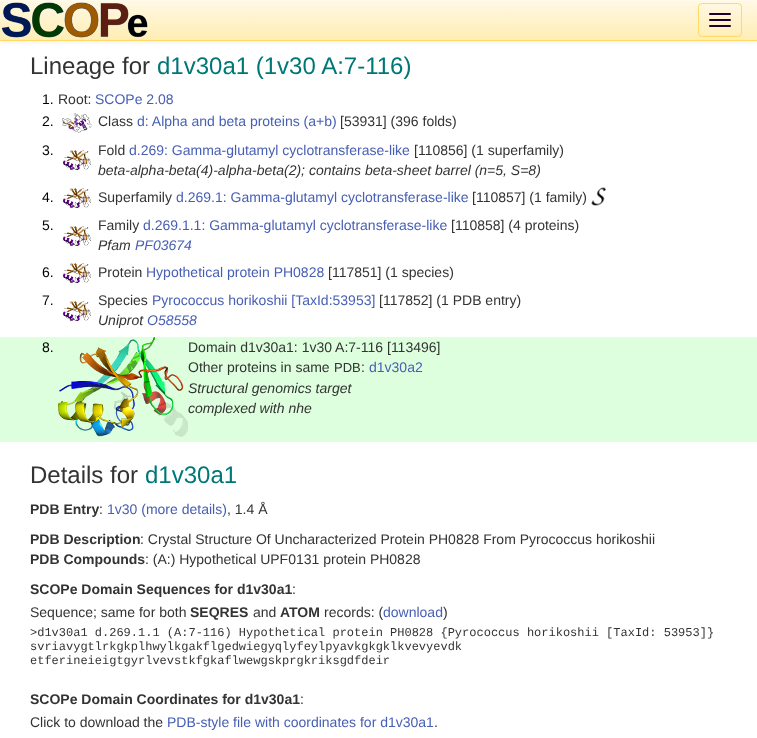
<svg xmlns="http://www.w3.org/2000/svg" width="757" height="738" viewBox="0 0 757 738">
  <style>
    .t1 { font: 24px Liberation Sans; fill: #333; }
    .t2 { font: 24px Liberation Sans; fill: #077; }
    .t3 { font: 14px Liberation Sans; fill: #000; }
    .t4 { font: 14px Liberation Sans; fill: #333; }
    .t5 { font: 14px Liberation Sans; fill: #465eb4; }
    .t6 { font: italic 14px Liberation Sans; fill: #333; }
    .t7 { font: italic 14px Liberation Sans; fill: #465eb4; }
    .t8 { font: 13px Liberation Sans; fill: #333; }
    .t9 { font: bold 14px Liberation Sans; fill: #333; }
    .t10 { font: 12px Liberation Mono; fill: #333; }
  </style>
  <defs>
    <linearGradient id="g1" gradientUnits="userSpaceOnUse" x1="379" y1="0" x2="379" y2="40"><stop offset="0" stop-color="#fff9e6"/><stop offset="1" stop-color="#ffedb3"/></linearGradient>
  </defs>
  <rect width="100%" height="100%" fill="#fff"/>
  <rect x="0" y="1" width="757" height="41" fill="#00000012" filter="blur(2.5px)"/>
  <rect x="0" y="1" width="757" height="39" fill="url(#g1)"/>
  <rect x="0" y="0" width="757" height="1" fill="#fffae9"/>
  <rect x="0" y="40" width="757" height="1" fill="#ffda65"/>
  <image x="2" y="2" width="146" height="36" href="images/1.png"/>
  <rect x="698.5" y="3.5" width="43" height="33" rx="3.5" fill="none" stroke="#ffda65"/>
  <rect x="709" y="13" width="22" height="2" rx="1" fill="#1d002b"/>
  <rect x="709" y="19" width="22" height="2" rx="1" fill="#1d002b"/>
  <rect x="709" y="25" width="22" height="2" rx="1" fill="#1d002b"/>
  <text x="30" y="74" class="t1">Lineage for</text>
  <text x="157" y="74" class="t2">d1v30a1 (1v30 A:7-116)</text>
  <text x="42" y="104" class="t3">1.</text>
  <text x="58" y="104" class="t4">Root:</text>
  <text x="95" y="104" class="t5">SCOPe 2.08</text>
  <text x="42" y="126" class="t3">2.</text>
  <image x="62" y="113" width="30" height="20" href="images/2.png"/>
  <text x="98" y="126" class="t4">Class</text>
  <text x="137" y="126" class="t5">d: Alpha and beta proteins (a+b)</text>
  <text x="340" y="126" class="t4">[53931] (396 folds)</text>
  <text x="42" y="155" class="t3">3.</text>
  <image x="63" y="150" width="28" height="20" href="images/3.png"/>
  <text x="98" y="155" class="t4">Fold</text>
  <text x="129" y="155" class="t5">d.269: Gamma-glutamyl cyclotransferase-like</text>
  <text x="414" y="155" class="t4">[110856] (1 superfamily)</text>
  <text x="98" y="175" class="t6">beta-alpha-beta(4)-alpha-beta(2); contains beta-sheet barrel (n=5, S=8)</text>
  <text x="42" y="202" class="t3">4.</text>
  <image x="63" y="188" width="28" height="20" href="images/3.png"/>
  <text x="98" y="202" class="t4">Superfamily</text>
  <text x="176" y="202" class="t5">d.269.1: Gamma-glutamyl cyclotransferase-like</text>
  <text x="472" y="202" class="t4">[110857] (1 family)</text>
  <image x="591" y="187" width="15" height="19" href="images/4.png"/>
  <text x="42" y="230" class="t3">5.</text>
  <image x="63" y="226" width="28" height="20" href="images/3.png"/>
  <text x="98" y="230" class="t4">Family</text>
  <text x="143" y="230" class="t5">d.269.1.1: Gamma-glutamyl cyclotransferase-like</text>
  <text x="451" y="230" class="t4">[110858] (4 proteins)</text>
  <text x="98" y="250" class="t6">Pfam</text>
  <text x="135" y="250" class="t7">PF03674</text>
  <text x="42" y="277" class="t3">6.</text>
  <image x="63" y="263" width="28" height="20" href="images/3.png"/>
  <text x="98" y="277" class="t4">Protein</text>
  <text x="146" y="277" class="t5">Hypothetical protein PH0828</text>
  <text x="328" y="277" class="t4">[117851] (1 species)</text>
  <text x="42" y="305" class="t3">7.</text>
  <image x="63" y="301" width="28" height="20" href="images/3.png"/>
  <text x="98" y="305" class="t4">Species</text>
  <text x="152" y="305" class="t5">Pyrococcus horikoshii [TaxId:53953]</text>
  <text x="379" y="305" class="t4">[117852] (1 PDB entry)</text>
  <text x="98" y="325" class="t6">Uniprot</text>
  <text x="147" y="325" class="t7">O58558</text>
  <rect x="0" y="337" width="757" height="105" fill="#dfd"/>
  <text x="42" y="352" class="t3">8.</text>
  <image x="58" y="337" width="130" height="100" href="images/5.png"/>
  <text x="188" y="352" class="t4">Domain d1v30a1: 1v30 A:7-116 [113496]</text>
  <text x="188" y="372" class="t4">Other proteins in same</text>
  <text x="334" y="372" class="t8">PDB</text>
  <text x="361" y="372" class="t4">:</text>
  <text x="369" y="372" class="t5">d1v30a2</text>
  <text x="188" y="393" class="t6">Structural genomics target</text>
  <text x="188" y="413" class="t6">complexed with nhe</text>
  <text x="30" y="483" class="t1">Details for</text>
  <text x="145" y="483" class="t2">d1v30a1</text>
  <text x="30" y="514" class="t9">PDB Entry</text>
  <text x="99" y="514" class="t4">:</text>
  <text x="107" y="514" class="t5">1v30 (more details)</text>
  <text x="227" y="514" class="t4">, 1.4 Å</text>
  <text x="30" y="544" class="t9">PDB Description</text>
  <text x="140" y="544" class="t4">: Crystal Structure Of Uncharacterized Protein PH0828 From Pyrococcus horikoshii</text>
  <text x="30" y="564" class="t9">PDB Compounds</text>
  <text x="145" y="564" class="t4">: (A:) Hypothetical UPF0131 protein PH0828</text>
  <text x="30" y="594" class="t9">SCOPe Domain Sequences for d1v30a1</text>
  <text x="292" y="594" class="t4">:</text>
  <text x="30" y="617" class="t4">Sequence; same for both</text>
  <text x="190" y="617" class="t9">SEQRES</text>
  <text x="253" y="617" class="t4">and</text>
  <text x="280" y="617" class="t9">ATOM</text>
  <text x="324" y="617" class="t4">records: (</text>
  <text x="383" y="617" class="t5">download</text>
  <text x="443" y="617" class="t4">)</text>
  <text x="30" y="636" class="t10">&gt;d1v30a1 d.269.1.1 (A:7-116) Hypothetical protein PH0828 {Pyrococcus horikoshii [TaxId: 53953]}</text>
  <text x="30" y="650" class="t10">svriavygtlrkgkplhwylkgakflgedwiegyqlyfeylpyavkgkgklkvevyevdk</text>
  <text x="30" y="664" class="t10">etferineieigtgyrlvevstkfgkaflwewgskprgkriksgdfdeir</text>
  <text x="30" y="704" class="t9">SCOPe Domain Coordinates for d1v30a1</text>
  <text x="300" y="704" class="t4">:</text>
  <text x="30" y="727" class="t4">Click to download the</text>
  <text x="167" y="727" class="t5">PDB-style file with coordinates for d1v30a1</text>
  <text x="434" y="727" class="t4">.</text>
</svg>
